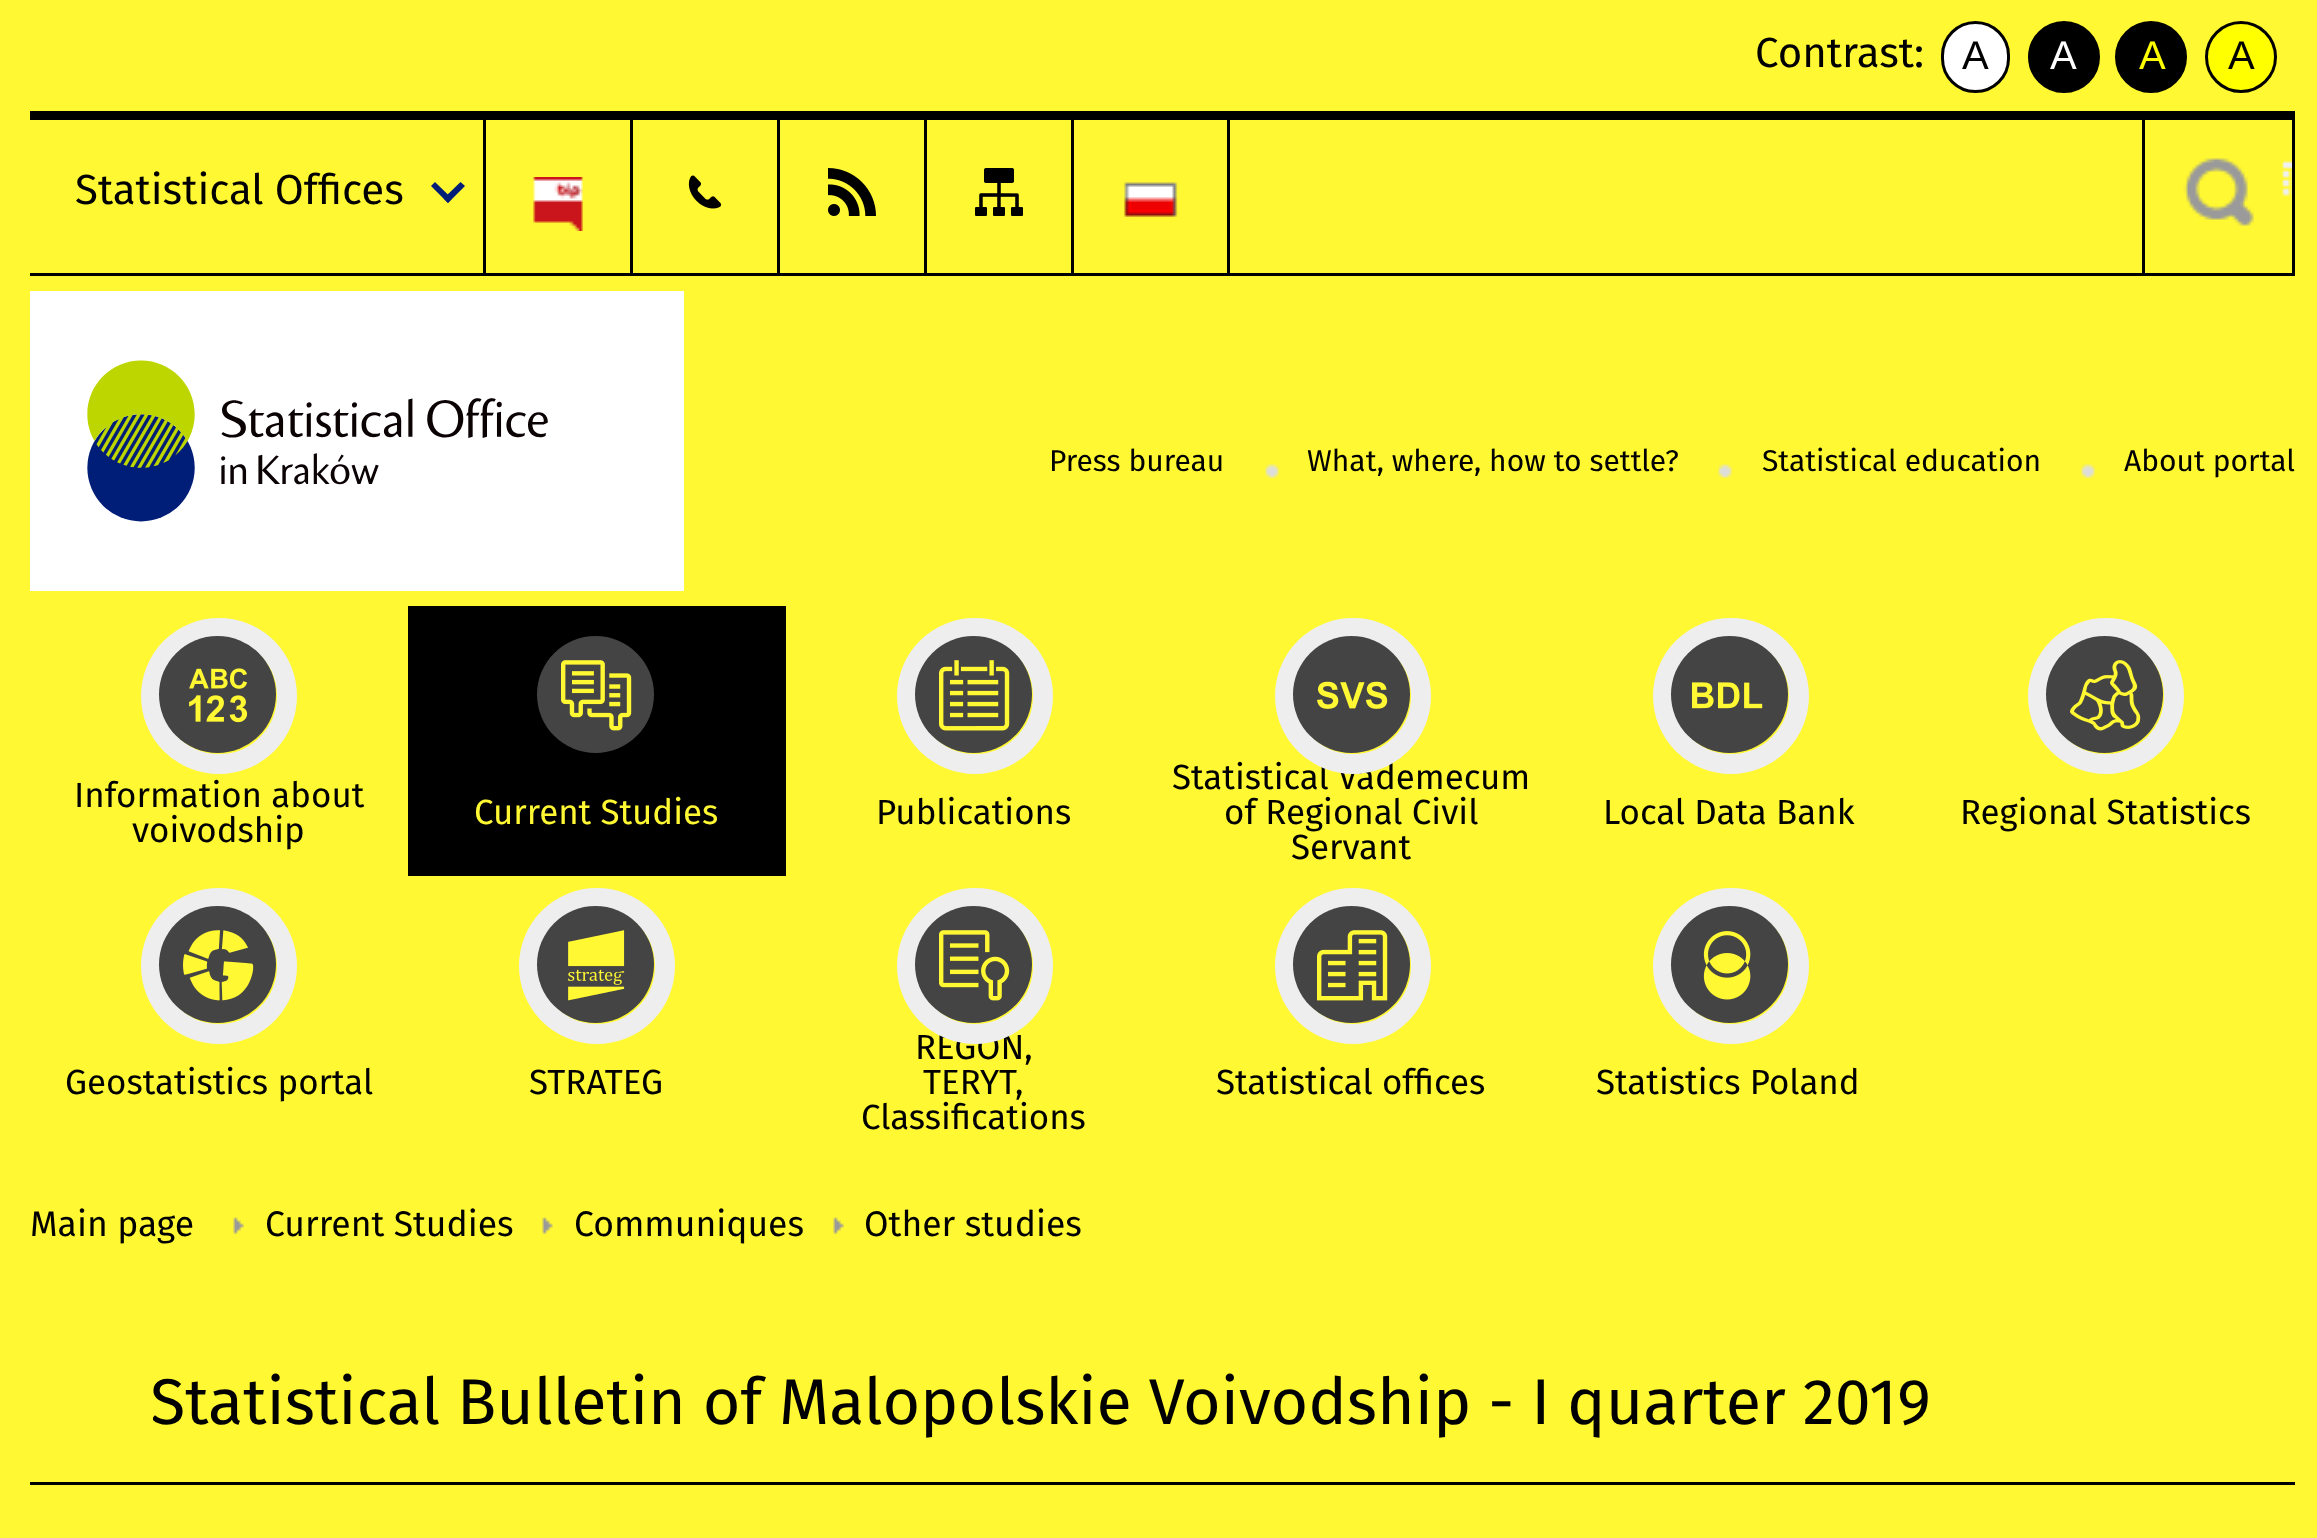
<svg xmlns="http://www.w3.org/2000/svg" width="2317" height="1538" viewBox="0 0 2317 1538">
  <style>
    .t1 { font: 42px Fira Sans; fill: #000; }
    .t2 { font: 40px Liberation Sans; fill: #000; }
    .t3 { font: 40px Liberation Sans; fill: #fff; }
    .t4 { font: 40px Liberation Sans; fill: #ff0; }
    .t5 { font: 30px Fira Sans; fill: #000; }
    .t6 { font: 34.9px Fira Sans; fill: #000; }
    .t7 { font: 34.9px Fira Sans; fill: #fff832; }
    .t8 { font: 35.5px Fira Sans; fill: #000; }
    .t9 { font: 64.6px Fira Sans; fill: #000; }
  </style>
  <rect width="100%" height="100%" fill="#fff832"/>
  <text x="1755" y="67" class="t1">Contrast:</text>
  <rect x="1942.5" y="22.5" width="66" height="69" rx="33" fill="#fff" stroke="#000" stroke-width="3"/>
  <text x="1962" y="69" class="t2">A</text>
  <circle cx="2064" cy="57" r="34.5" fill="#000" stroke="#000" stroke-width="3"/>
  <text x="2050" y="69" class="t3">A</text>
  <circle cx="2151" cy="57" r="34.5" fill="#000" stroke="#000" stroke-width="3"/>
  <text x="2139" y="69" class="t4">A</text>
  <circle cx="2241" cy="57" r="34.5" fill="#ff0" stroke="#000" stroke-width="3"/>
  <text x="2228" y="69" class="t2">A</text>
  <rect x="30" y="111" width="2265" height="9" fill="#000"/>
  <rect x="30" y="273" width="2265" height="3" fill="#000"/>
  <rect x="483" y="120" width="3" height="153" fill="#000"/>
  <text x="75" y="204" class="t1">Statistical Offices</text>
  <path d="M460.5 182L465 186L448 203L443.5 198.5Z" fill="#001d77"/>
  <path d="M435 182L452 198.5L448 203L431 186Z" fill="#001d77"/>
  <rect x="630" y="120" width="3" height="153" fill="#000"/>
  <image x="533" y="177" width="50" height="54" href="images/1.png"/>
  <rect x="777" y="120" width="3" height="153" fill="#000"/>
  <image x="688" y="175" width="34" height="34" href="images/2.png"/>
  <rect x="924" y="120" width="3" height="153" fill="#000"/>
  <image x="828" y="168" width="48" height="48" href="images/3.png"/>
  <rect x="1071" y="120" width="3" height="153" fill="#000"/>
  <image x="975" y="168" width="48" height="48" href="images/4.png"/>
  <rect x="1227" y="120" width="3" height="153" fill="#000"/>
  <image x="1124" y="182" width="54" height="35" href="images/5.png"/>
  <image x="2183" y="158" width="109" height="68" href="images/6.png"/>
  <rect x="2292" y="120" width="3" height="153" fill="#000"/>
  <rect x="2142" y="120" width="3" height="153" fill="#000"/>
  <rect x="30" y="291" width="654" height="300" fill="#fff"/>
  <image x="87" y="360" width="461" height="162" href="images/7.png"/>
  <text x="1049" y="471" class="t5">Press bureau</text>
  <image x="1265" y="464" width="14" height="14" href="images/8.png"/>
  <text x="1307" y="471" class="t5">What, where, how to settle?</text>
  <image x="1718" y="464" width="14" height="14" href="images/9.png"/>
  <text x="1762" y="471" class="t5">Statistical education</text>
  <image x="2081" y="464" width="14" height="14" href="images/9.png"/>
  <text x="2124" y="471" class="t5">About portal</text>
  <circle cx="219" cy="696" r="68" fill="none" stroke="#eee" stroke-width="20"/>
  <circle cx="217.5" cy="694.5" r="58.5" fill="#444"/>
  <image x="189" y="668" width="59" height="55" href="images/10.png"/>
  <text x="74" y="807" class="t6">Information about</text>
  <text x="132" y="842" class="t6">voivodship</text>
  <rect x="408" y="606" width="378" height="270" fill="#000"/>
  <circle cx="595.5" cy="694.5" r="58.5" fill="#444"/>
  <image x="561" y="660" width="71" height="71" href="images/11.png"/>
  <text x="474" y="824" class="t7">Current Studies</text>
  <circle cx="975" cy="696" r="68" fill="none" stroke="#eee" stroke-width="20"/>
  <circle cx="973.5" cy="694.5" r="58.5" fill="#444"/>
  <image x="939" y="660" width="71" height="71" href="images/12.png"/>
  <text x="876" y="824" class="t6">Publications</text>
  <text x="1172" y="789" class="t6">Statistical Vademecum</text>
  <circle cx="1353" cy="696" r="68" fill="none" stroke="#eee" stroke-width="20"/>
  <circle cx="1351.5" cy="694.5" r="58.5" fill="#444"/>
  <image x="1317" y="681" width="71" height="28" href="images/13.png"/>
  <text x="1224" y="824" class="t6">of Regional Civil</text>
  <text x="1291" y="859" class="t6">Servant</text>
  <circle cx="1731" cy="696" r="68" fill="none" stroke="#eee" stroke-width="20"/>
  <circle cx="1729.5" cy="694.5" r="58.5" fill="#444"/>
  <image x="1692" y="682" width="71" height="27" href="images/14.png"/>
  <text x="1603" y="824" class="t6">Local Data Bank</text>
  <circle cx="2106" cy="696" r="68" fill="none" stroke="#eee" stroke-width="20"/>
  <circle cx="2104.5" cy="694.5" r="58.5" fill="#444"/>
  <image x="2070" y="660" width="71" height="71" href="images/15.png"/>
  <text x="1960" y="824" class="t6">Regional Statistics</text>
  <circle cx="219" cy="966" r="68" fill="none" stroke="#eee" stroke-width="20"/>
  <circle cx="217.5" cy="964.5" r="58.5" fill="#444"/>
  <image x="183" y="930" width="71" height="71" href="images/16.png"/>
  <text x="65" y="1094" class="t6">Geostatistics portal</text>
  <circle cx="597" cy="966" r="68" fill="none" stroke="#eee" stroke-width="20"/>
  <circle cx="595.5" cy="964.5" r="58.5" fill="#444"/>
  <image x="568" y="930" width="57" height="71" href="images/17.png"/>
  <text x="529" y="1094" class="t6">STRATEG</text>
  <text x="915" y="1059" class="t6">REGON,</text>
  <circle cx="975" cy="966" r="68" fill="none" stroke="#eee" stroke-width="20"/>
  <circle cx="973.5" cy="964.5" r="58.5" fill="#444"/>
  <image x="939" y="930" width="71" height="71" href="images/18.png"/>
  <text x="923" y="1094" class="t6">TERYT,</text>
  <text x="861" y="1129" class="t6">Classifications</text>
  <circle cx="1353" cy="966" r="68" fill="none" stroke="#eee" stroke-width="20"/>
  <circle cx="1351.5" cy="964.5" r="58.5" fill="#444"/>
  <image x="1317" y="930" width="71" height="71" href="images/19.png"/>
  <text x="1216" y="1094" class="t6">Statistical offices</text>
  <circle cx="1731" cy="966" r="68" fill="none" stroke="#eee" stroke-width="20"/>
  <circle cx="1729.5" cy="964.5" r="58.5" fill="#444"/>
  <image x="1703" y="931" width="48" height="69" href="images/20.png"/>
  <text x="1596" y="1094" class="t6">Statistics Poland</text>
  <text x="30" y="1236" class="t8">Main page</text>
  <image x="233" y="1217" width="11" height="18" href="images/21.png"/>
  <text x="265" y="1236" class="t8">Current Studies</text>
  <image x="542" y="1217" width="11" height="18" href="images/21.png"/>
  <text x="574" y="1236" class="t8">Communiques</text>
  <image x="833" y="1217" width="11" height="18" href="images/21.png"/>
  <text x="864" y="1236" class="t8">Other studies</text>
  <rect x="30" y="1482" width="2265" height="3" fill="#000"/>
  <text x="150" y="1424" word-spacing="-0.25" class="t9">Statistical Bulletin of Malopolskie Voivodship - I quarter 2019</text>
  <rect x="151" y="1417" width="2" height="4" fill="#fff832"/>
</svg>
